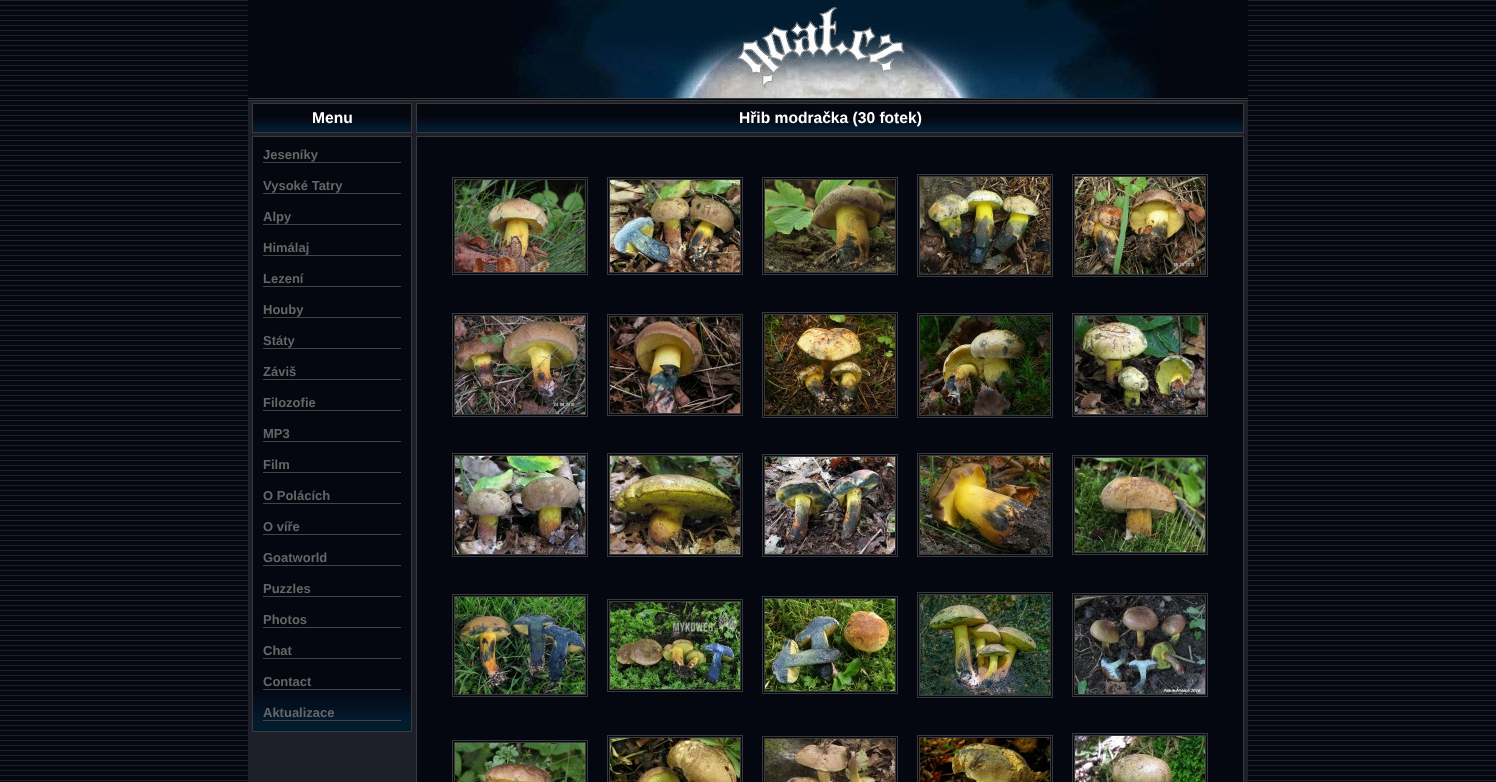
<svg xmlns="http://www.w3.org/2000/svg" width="1496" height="782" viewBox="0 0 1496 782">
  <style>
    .t1 { font: bold 15.6px Liberation Sans; fill: #fff; }
    .t2 { font: bold 13px Liberation Sans; fill: #666; }
  </style>
  <rect width="100%" height="100%" fill="#fff"/>
  <image x="0" y="0" width="1496" height="782" href="images/1.png"/>
  <rect x="248" y="101" width="1000" height="681" fill="#1d2029"/>
  <rect x="248" y="0" width="1000" height="96" fill="#040710"/>
  <rect x="248" y="98" width="1000" height="1" fill="#393939"/>
  <rect x="248" y="100" width="1000" height="1" fill="#393939"/>
  <image x="511" y="0" width="649" height="98" href="images/2.png"/>
  <rect x="253" y="104" width="158" height="15" fill="#040710"/>
  <image x="253" y="119" width="158" height="13" href="images/3.png"/>
  <rect x="252.5" y="103.5" width="159" height="29" fill="none" stroke="#393939"/>
  <text x="312" y="123" class="t1">Menu</text>
  <rect x="253" y="137" width="158" height="554" fill="#040710"/>
  <image x="253" y="691" width="158" height="40" href="images/4.png"/>
  <rect x="252.5" y="136.5" width="159" height="595" fill="none" stroke="#393939"/>
  <rect x="263" y="162" width="138" height="1" fill="#444"/>
  <text x="263" y="159" class="t2">Jeseníky</text>
  <rect x="263" y="193" width="138" height="1" fill="#444"/>
  <text x="263" y="190" class="t2">Vysoké Tatry</text>
  <rect x="263" y="224" width="138" height="1" fill="#444"/>
  <text x="263" y="221" class="t2">Alpy</text>
  <rect x="263" y="255" width="138" height="1" fill="#444"/>
  <text x="263" y="252" class="t2">Himálaj</text>
  <rect x="263" y="286" width="138" height="1" fill="#444"/>
  <text x="263" y="283" class="t2">Lezení</text>
  <rect x="263" y="317" width="138" height="1" fill="#444"/>
  <text x="263" y="314" class="t2">Houby</text>
  <rect x="263" y="348" width="138" height="1" fill="#444"/>
  <text x="263" y="345" class="t2">Státy</text>
  <rect x="263" y="379" width="138" height="1" fill="#444"/>
  <text x="263" y="376" class="t2">Záviš</text>
  <rect x="263" y="410" width="138" height="1" fill="#444"/>
  <text x="263" y="407" class="t2">Filozofie</text>
  <rect x="263" y="441" width="138" height="1" fill="#444"/>
  <text x="263" y="438" class="t2">MP3</text>
  <rect x="263" y="472" width="138" height="1" fill="#444"/>
  <text x="263" y="469" class="t2">Film</text>
  <rect x="263" y="503" width="138" height="1" fill="#444"/>
  <text x="263" y="500" class="t2">O Polácích</text>
  <rect x="263" y="534" width="138" height="1" fill="#444"/>
  <text x="263" y="531" class="t2">O víře</text>
  <rect x="263" y="565" width="138" height="1" fill="#444"/>
  <text x="263" y="562" class="t2">Goatworld</text>
  <rect x="263" y="596" width="138" height="1" fill="#444"/>
  <text x="263" y="593" class="t2">Puzzles</text>
  <rect x="263" y="627" width="138" height="1" fill="#444"/>
  <text x="263" y="624" class="t2">Photos</text>
  <rect x="263" y="658" width="138" height="1" fill="#444"/>
  <text x="263" y="655" class="t2">Chat</text>
  <rect x="263" y="689" width="138" height="1" fill="#444"/>
  <text x="263" y="686" class="t2">Contact</text>
  <rect x="263" y="720" width="138" height="1" fill="#444"/>
  <text x="263" y="717" class="t2">Aktualizace</text>
  <rect x="417" y="104" width="826" height="15" fill="#040710"/>
  <image x="417" y="119" width="826" height="13" href="images/5.png"/>
  <rect x="416.5" y="103.5" width="827" height="29" fill="none" stroke="#393939"/>
  <text x="739" y="123" class="t1">Hřib modračka (30 fotek)</text>
  <rect x="416.5" y="136.5" width="827" height="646" fill="#040710" stroke="#393939"/>
  <rect x="452.5" y="177.5" width="135" height="97" fill="none" stroke="#393939"/>
  <rect x="454.5" y="179.5" width="131" height="93" fill="none" stroke="#393939"/>
  <image x="455" y="180" width="130" height="92" href="images/6.png"/>
  <rect x="607.5" y="177.5" width="135" height="97" fill="none" stroke="#393939"/>
  <rect x="609.5" y="179.5" width="131" height="93" fill="none" stroke="#393939"/>
  <image x="610" y="180" width="130" height="92" href="images/7.png"/>
  <rect x="762.5" y="177.5" width="135" height="97" fill="none" stroke="#393939"/>
  <rect x="764.5" y="179.5" width="131" height="93" fill="none" stroke="#393939"/>
  <image x="765" y="180" width="130" height="92" href="images/8.png"/>
  <rect x="917.5" y="174.5" width="135" height="102" fill="none" stroke="#393939"/>
  <rect x="919.5" y="176.5" width="131" height="98" fill="none" stroke="#393939"/>
  <image x="920" y="177" width="130" height="97" href="images/9.png"/>
  <rect x="1072.5" y="174.5" width="135" height="102" fill="none" stroke="#393939"/>
  <rect x="1074.5" y="176.5" width="131" height="98" fill="none" stroke="#393939"/>
  <image x="1075" y="177" width="130" height="97" href="images/10.png"/>
  <rect x="452.5" y="313.5" width="135" height="103" fill="none" stroke="#393939"/>
  <rect x="454.5" y="315.5" width="131" height="99" fill="none" stroke="#393939"/>
  <image x="455" y="316" width="130" height="98" href="images/11.png"/>
  <rect x="607.5" y="314.5" width="135" height="101" fill="none" stroke="#393939"/>
  <rect x="609.5" y="316.5" width="131" height="97" fill="none" stroke="#393939"/>
  <image x="610" y="317" width="130" height="96" href="images/12.png"/>
  <rect x="762.5" y="312.5" width="135" height="105" fill="none" stroke="#393939"/>
  <rect x="764.5" y="314.5" width="131" height="101" fill="none" stroke="#393939"/>
  <image x="765" y="315" width="130" height="100" href="images/13.png"/>
  <rect x="917.5" y="313.5" width="135" height="104" fill="none" stroke="#393939"/>
  <rect x="919.5" y="315.5" width="131" height="100" fill="none" stroke="#393939"/>
  <image x="920" y="316" width="130" height="99" href="images/14.png"/>
  <rect x="1072.5" y="313.5" width="135" height="103" fill="none" stroke="#393939"/>
  <rect x="1074.5" y="315.5" width="131" height="99" fill="none" stroke="#393939"/>
  <image x="1075" y="316" width="130" height="98" href="images/15.png"/>
  <rect x="452.5" y="453.5" width="135" height="103" fill="none" stroke="#393939"/>
  <rect x="454.5" y="455.5" width="131" height="99" fill="none" stroke="#393939"/>
  <image x="455" y="456" width="130" height="98" href="images/16.png"/>
  <rect x="607.5" y="453.5" width="135" height="103" fill="none" stroke="#393939"/>
  <rect x="609.5" y="455.5" width="131" height="99" fill="none" stroke="#393939"/>
  <image x="610" y="456" width="130" height="98" href="images/17.png"/>
  <rect x="762.5" y="454.5" width="135" height="102" fill="none" stroke="#393939"/>
  <rect x="764.5" y="456.5" width="131" height="98" fill="none" stroke="#393939"/>
  <image x="765" y="457" width="130" height="97" href="images/18.png"/>
  <rect x="917.5" y="453.5" width="135" height="103" fill="none" stroke="#393939"/>
  <rect x="919.5" y="455.5" width="131" height="99" fill="none" stroke="#393939"/>
  <image x="920" y="456" width="130" height="98" href="images/19.png"/>
  <rect x="1072.5" y="455.5" width="135" height="99" fill="none" stroke="#393939"/>
  <rect x="1074.5" y="457.5" width="131" height="95" fill="none" stroke="#393939"/>
  <image x="1075" y="458" width="130" height="94" href="images/20.png"/>
  <rect x="452.5" y="594.5" width="135" height="102" fill="none" stroke="#393939"/>
  <rect x="454.5" y="596.5" width="131" height="98" fill="none" stroke="#393939"/>
  <image x="455" y="597" width="130" height="97" href="images/21.png"/>
  <rect x="607.5" y="599.5" width="135" height="92" fill="none" stroke="#393939"/>
  <rect x="609.5" y="601.5" width="131" height="88" fill="none" stroke="#393939"/>
  <image x="610" y="602" width="130" height="87" href="images/22.png"/>
  <rect x="762.5" y="596.5" width="135" height="97" fill="none" stroke="#393939"/>
  <rect x="764.5" y="598.5" width="131" height="93" fill="none" stroke="#393939"/>
  <image x="765" y="599" width="130" height="92" href="images/23.png"/>
  <rect x="917.5" y="592.5" width="135" height="105" fill="none" stroke="#393939"/>
  <rect x="919.5" y="594.5" width="131" height="101" fill="none" stroke="#393939"/>
  <image x="920" y="595" width="130" height="100" href="images/24.png"/>
  <rect x="1072.5" y="593.5" width="135" height="103" fill="none" stroke="#393939"/>
  <rect x="1074.5" y="595.5" width="131" height="99" fill="none" stroke="#393939"/>
  <image x="1075" y="596" width="130" height="98" href="images/25.png"/>
  <rect x="452.5" y="740.5" width="135" height="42" fill="none" stroke="#393939"/>
  <rect x="454.5" y="742.5" width="131" height="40" fill="none" stroke="#393939"/>
  <image x="455" y="743" width="130" height="39" href="images/26.png"/>
  <rect x="607.5" y="735.5" width="135" height="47" fill="none" stroke="#393939"/>
  <rect x="609.5" y="737.5" width="131" height="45" fill="none" stroke="#393939"/>
  <image x="610" y="738" width="130" height="44" href="images/27.png"/>
  <rect x="762.5" y="736.5" width="135" height="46" fill="none" stroke="#393939"/>
  <rect x="764.5" y="738.5" width="131" height="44" fill="none" stroke="#393939"/>
  <image x="765" y="739" width="130" height="43" href="images/28.png"/>
  <rect x="917.5" y="735.5" width="135" height="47" fill="none" stroke="#393939"/>
  <rect x="919.5" y="737.5" width="131" height="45" fill="none" stroke="#393939"/>
  <image x="920" y="738" width="130" height="44" href="images/29.png"/>
  <rect x="1072.5" y="733.5" width="135" height="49" fill="none" stroke="#393939"/>
  <rect x="1074.5" y="735.5" width="131" height="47" fill="none" stroke="#393939"/>
  <image x="1075" y="736" width="130" height="46" href="images/30.png"/>
</svg>
